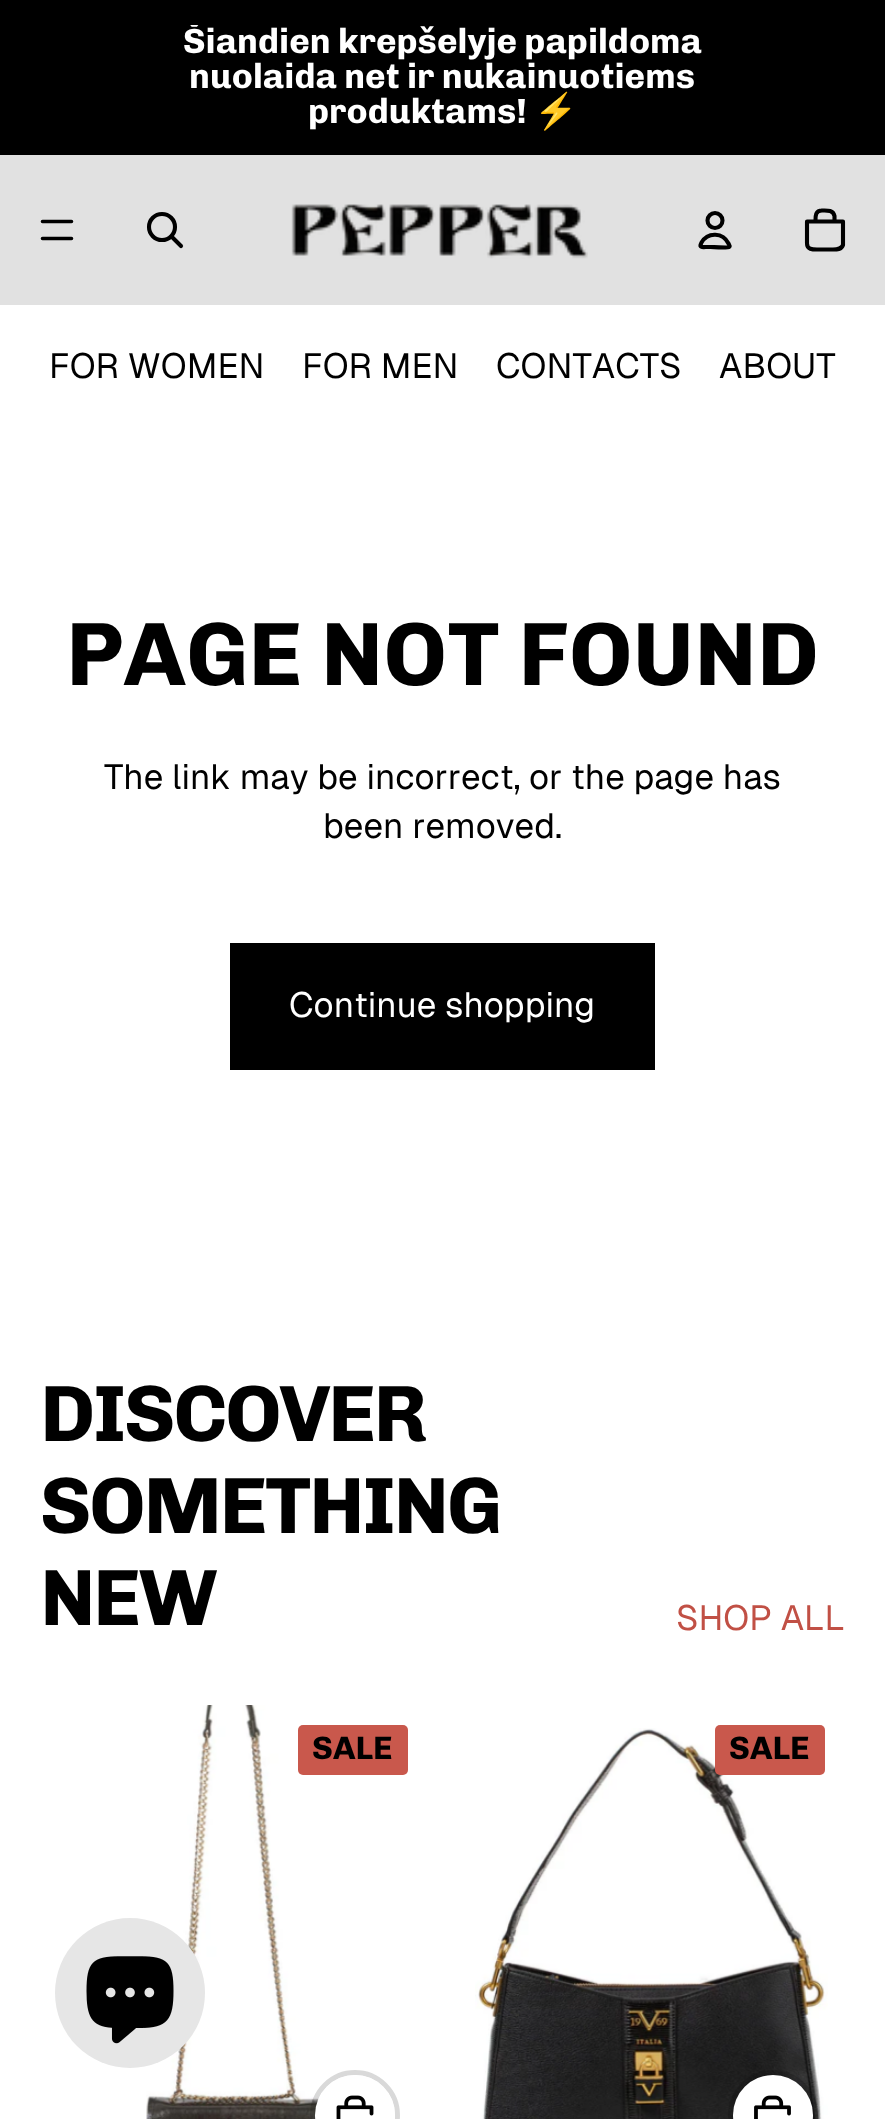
<svg xmlns="http://www.w3.org/2000/svg" width="885" height="2119" viewBox="0 0 885 2119">
  <style>*{font-kerning:none!important;font-variant-ligatures:none!important}</style>
  <style>
    .t1 { font: bold 35px Chivo; fill: #fff; }
    .t2 { font: 35px Noto Color Emoji; fill: #fff; }
    .t3 { font: 35px Geist; fill: #000; }
    .t4 { font: bold 90px Chivo; fill: #000; }
    .t5 { font: 35px Geist; fill: #fff; }
    .t6 { font: bold 80px Chivo; letter-spacing: -2.5px; fill: #000; }
    .t7 { font: 35px Geist; fill: #c15045; }
    .t8 { font: bold 32.5px Chivo; fill: #000; }
  </style>
  <defs>
    <clipPath id="clip1"><rect x="110" y="25" width="665" height="105"/></clipPath>
  </defs>
  <rect width="100%" height="100%" fill="#fff"/>
  <rect x="0" y="0" width="885" height="155" fill="#000"/>
  <g clip-path="url(#clip1)">
    <text x="183" y="53" class="t1">Šiandien krepšelyje papildoma</text>
  </g>
  <text x="189" y="88" class="t1">nuolaida net ir nukainuotiems</text>
  <text x="308" y="123" class="t1">produktams!</text>
  <text x="534" y="123" class="t2">⚡</text>
  <rect x="0" y="155" width="885" height="150" fill="#e1e1e1"/>
  <path d="M42.5 221.5H71.5M42.5 238.5H71.5" fill="none" stroke="#000" stroke-width="3.6" stroke-linecap="round"/>
  <circle cx="162" cy="227" r="13" fill="none" stroke="#000" stroke-width="4.1"/>
  <path d="M172 237L181 246" fill="none" stroke="#000" stroke-width="4.1" stroke-linecap="round" stroke-linejoin="round"/>
  <image x="291" y="204" width="297" height="55" href="images/1.png"/>
  <circle cx="715" cy="220.5" r="7.5" fill="none" stroke="#000" stroke-width="4.1"/>
  <path d="M701.5 242.5L700.5 245C699.5 248 705.5 247 706.5 247H710.5C713 247 728 248 729 247L729.5 246.5C730 245.5 729 244.5 728.5 243.5C723 232.5 708 231.5 701.5 242.5" fill="none" stroke="#000" stroke-width="4.1" stroke-linecap="round" stroke-linejoin="round"/>
  <path d="M807 221.5H843V245C841.5 249.5 837 249.5 833 249.5H817C812.5 249.5 807 249.5 807 243.5ZM821.5 210.5C826.5 210.5 833 209.5 834.5 216V221.5H815.5C815.5 216.5 815 210.5 822 210.5" fill="none" stroke="#000" stroke-width="4.1" stroke-linecap="round" stroke-linejoin="round"/>
  <text x="49" y="378" class="t3">FOR WOMEN</text>
  <text x="302" y="378" class="t3">FOR MEN</text>
  <text x="496" y="378" class="t3">CONTACTS</text>
  <text x="719" y="378" class="t3">ABOUT</text>
  <text x="66" y="685" class="t4">PAGE NOT FOUND</text>
  <text x="104" y="789" class="t3">The link may be incorrect,</text>
  <text x="529" y="789" class="t3">or the page has</text>
  <text x="323" y="838" class="t3">been removed.</text>
  <rect x="230" y="943" width="425" height="127" fill="#000"/>
  <text x="289" y="1017" class="t5">Continue shopping</text>
  <text x="40" y="1441" class="t6">DISCOVER</text>
  <text x="40" y="1533" class="t6">SOMETHING</text>
  <text x="40" y="1625" class="t6">NEW</text>
  <text x="676" y="1630" class="t7">SHOP ALL</text>
  <image x="146" y="1705" width="177" height="414" href="images/2.png"/>
  <rect x="298" y="1725" width="110" height="50" rx="5" fill="#c9584c"/>
  <text x="312" y="1759" class="t8">SALE</text>
  <circle cx="355" cy="2115" r="42.5" fill="none" stroke="#00000026" stroke-width="5"/>
  <circle cx="355" cy="2115" r="40" fill="#fff"/>
  <image x="336" y="2095" width="38" height="24" href="images/3.png"/>
  <path d="M349.5 2116.5L353.5 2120.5L360.5 2111" fill="none" stroke="#fff" stroke-width="2.8" stroke-linecap="round" stroke-linejoin="round"/>
  <image x="475" y="1728" width="353" height="391" href="images/4.png"/>
  <rect x="715" y="1725" width="110" height="50" rx="5" fill="#c9584c"/>
  <text x="729" y="1759" class="t8">SALE</text>
  <circle cx="773" cy="2115" r="42.5" fill="none" stroke="#00000026" stroke-width="5"/>
  <circle cx="773" cy="2115" r="40" fill="#fff"/>
  <image x="754" y="2095" width="37" height="24" href="images/5.png"/>
  <path d="M767 2116.5L771 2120.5L778 2111" fill="none" stroke="#fff" stroke-width="2.8" stroke-linecap="round" stroke-linejoin="round"/>
  <circle cx="130" cy="1993" r="75" fill="#e6e6e6"/>
  <image x="86" y="1956" width="88" height="88" href="images/6.png"/>
</svg>
